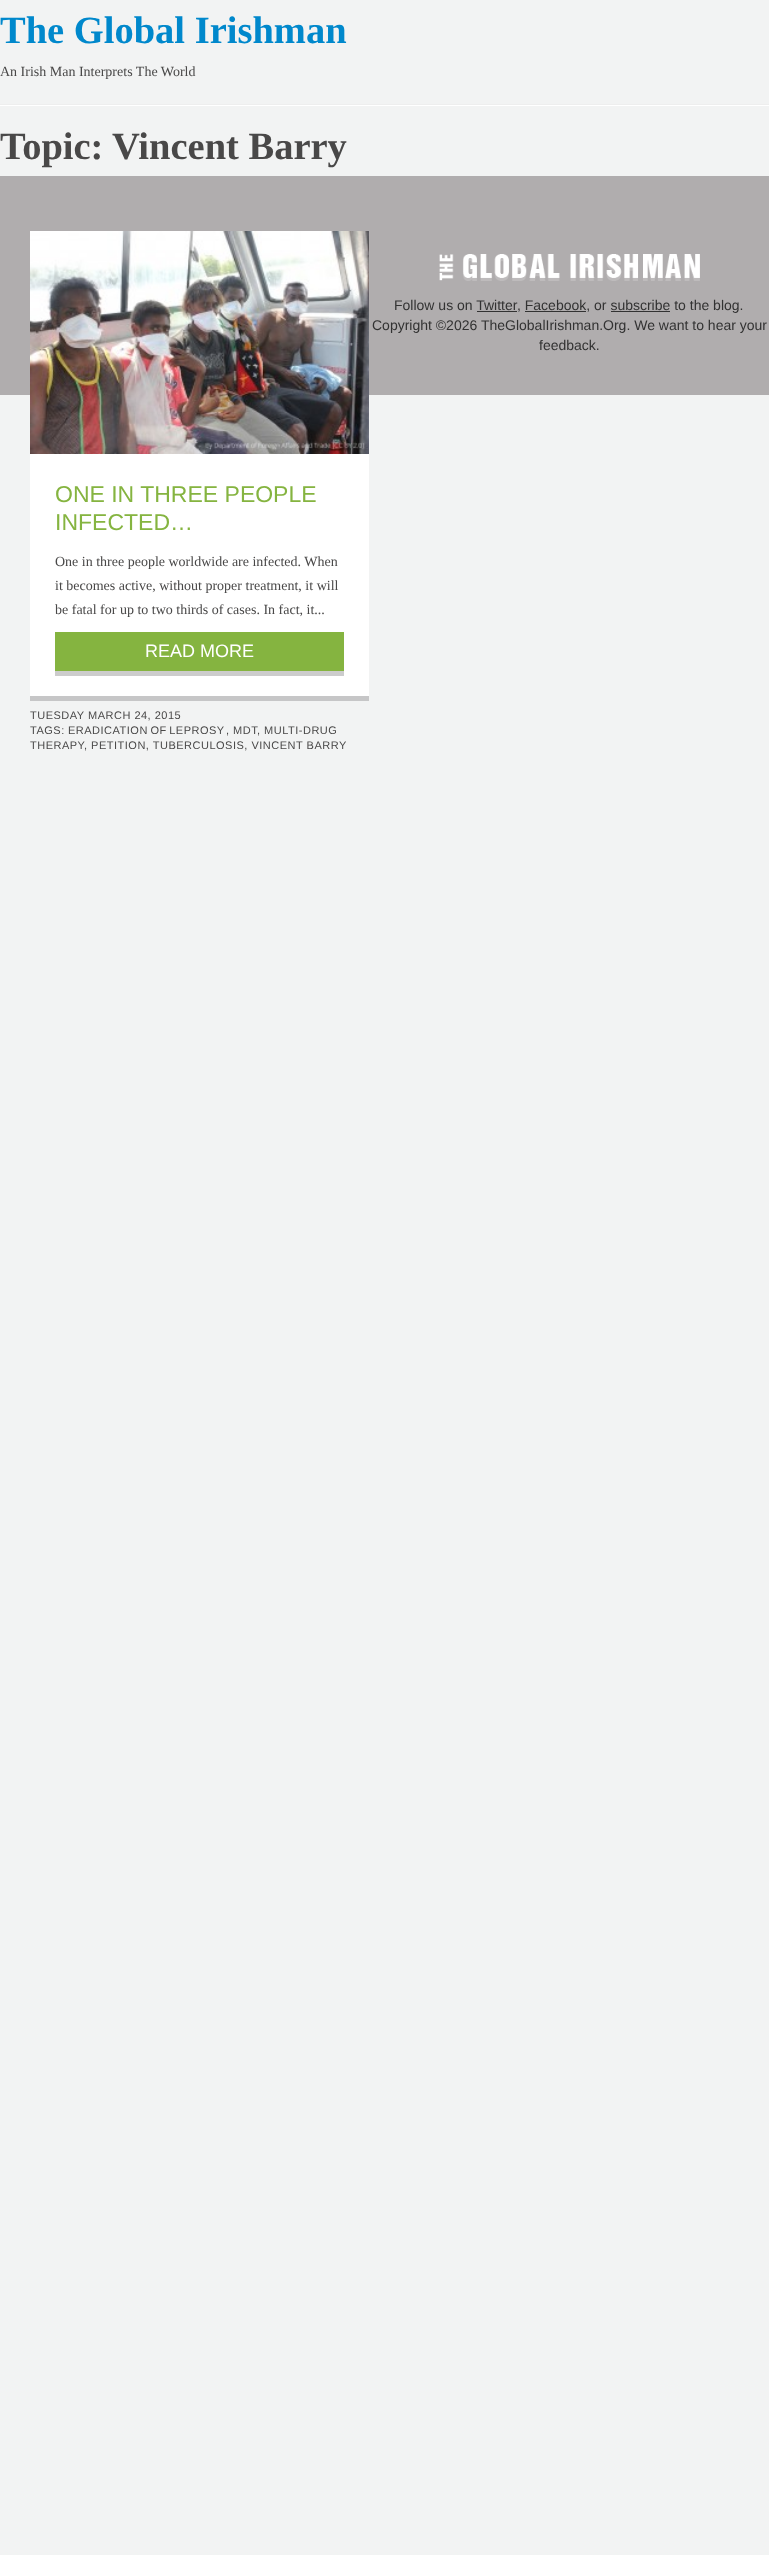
<svg xmlns="http://www.w3.org/2000/svg" width="769" height="2555" viewBox="0 0 769 2555">
  <style>
    .t1 { font: bold 38.5px Liberation Serif; fill: #08c; }
    .t2 { font: 14px Liberation Serif; fill: #494848; }
    .t3 { font: bold 38.5px Liberation Serif; fill: #494848; }
    .t4 { font: 14px Liberation Sans; fill: #323232; }
    .t5 { font: 23px Liberation Sans; fill: #85b440; }
    .t6 { font: 18px Liberation Sans; fill: #fff; }
    .t7 { font: 11px Liberation Sans; letter-spacing: 0.5px; fill: #494848; }
  </style>
  <rect width="100%" height="100%" fill="#f2f3f3"/>
  <text x="0" y="43" class="t1">The Global Irishman</text>
  <text x="0" y="76" class="t2">An Irish Man Interprets The World</text>
  <rect x="0" y="104" width="769" height="1" fill="#eee"/>
  <rect x="0" y="105" width="769" height="1" fill="#fff"/>
  <text x="0" y="159" class="t3">Topic:</text>
  <text x="112" y="159" class="t3">Vincent Barry</text>
  <rect x="0" y="176" width="769" height="219" fill="#b0adae"/>
  <image x="439" y="254" width="261" height="27" href="images/1.png"/>
  <text x="394" y="310" class="t4">Follow us on Twitter</text>
  <text x="517" y="310" class="t4">, Facebook, or subscribe to the blog.</text>
  <rect x="477" y="311" width="40" height="1" fill="#323232"/>
  <rect x="525" y="311" width="61" height="1" fill="#323232"/>
  <rect x="611" y="311" width="59" height="1" fill="#323232"/>
  <text x="372" y="330" class="t4">Copyright ©2026 TheGlobalIrishman.Org. We want to hear your</text>
  <text x="539" y="350" class="t4">feedback.</text>
  <rect x="30" y="454" width="339" height="242" fill="#fff"/>
  <image x="30" y="231" width="339" height="223" href="images/2.png"/>
  <text x="55" y="502" class="t5">ONE IN THREE PEOPLE</text>
  <text x="55" y="530" class="t5">INFECTED…</text>
  <rect x="30" y="696" width="339" height="5" fill="#c6c6c7"/>
  <text x="55" y="566" class="t2">One in three people worldwide are infected. When</text>
  <text x="55" y="590" class="t2">it becomes active, without proper treatment, it will</text>
  <text x="55" y="614" class="t2">be fatal for up to two thirds of cases. In fact, it...</text>
  <rect x="55" y="632" width="289" height="39" fill="#85b440"/>
  <rect x="55" y="671" width="289" height="5" fill="#ccc"/>
  <text x="145" y="657" class="t6">READ MORE</text>
  <text x="30" y="719" class="t7">TUESDAY MARCH 24, 2015</text>
  <text x="30" y="734" class="t7">TAGS:</text>
  <text x="68" y="734" word-spacing="-1" class="t7">ERADICATION OF LEPROSY</text>
  <text x="226" y="734" class="t7">, MDT</text>
  <text x="257" y="734" class="t7">, MULTI-DRUG</text>
  <text x="30" y="749" class="t7">THERAPY</text>
  <text x="84" y="749" class="t7">, PETITION, TUBERCULOSIS, VINCENT BARRY</text>
</svg>
